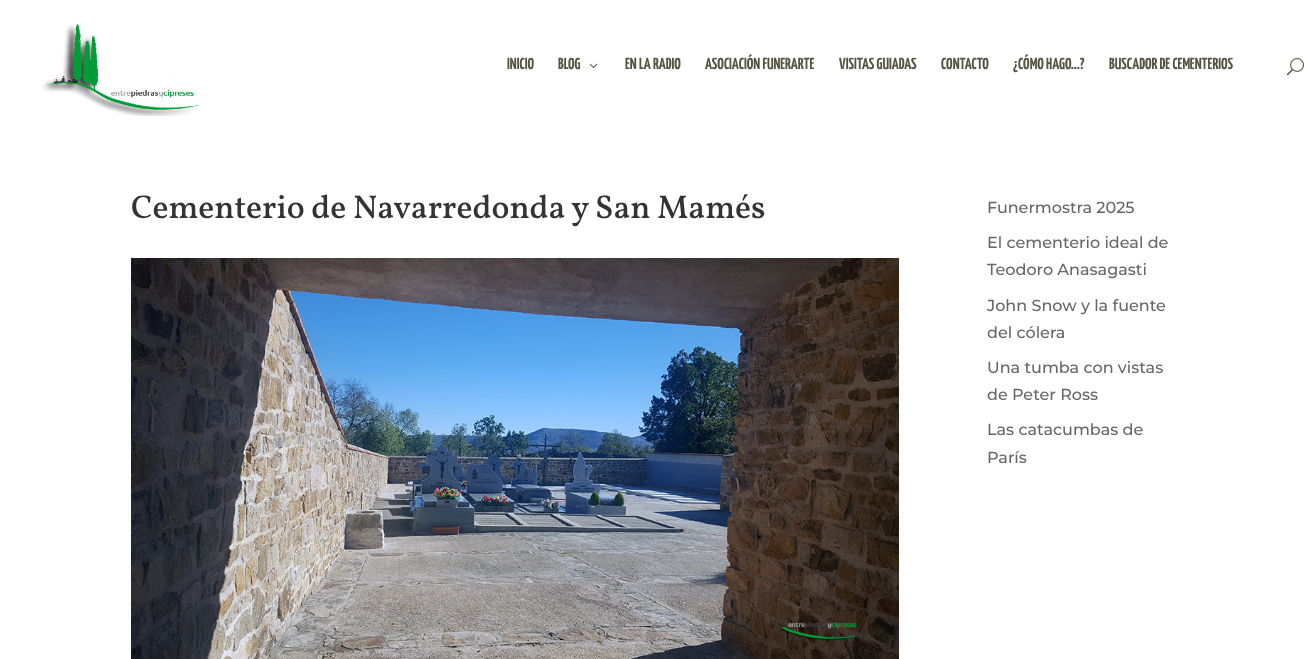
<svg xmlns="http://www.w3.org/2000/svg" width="1305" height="659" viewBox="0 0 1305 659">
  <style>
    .t1 { font: bold 16px Yanone Kaffeesatz; fill: #565343; }
    .t2 { font: 500 33px Vollkorn; fill: #333; }
    .t3 { font: 500 16px Montserrat; fill: #666; }
  </style>
  <rect width="100%" height="100%" fill="#fff"/>
  <image x="41" y="24" width="158" height="92" href="images/1.png"/>
  <text x="507" y="69" class="t1">INICIO</text>
  <text x="558" y="69" class="t1">BLOG</text>
  <image x="589" y="63" width="9" height="5" href="images/2.png"/>
  <text x="625" y="69" class="t1">EN LA RADIO</text>
  <text x="705" y="69" class="t1">ASOCIACIÓN FUNERARTE</text>
  <text x="839" y="69" class="t1">VISITAS GUIADAS</text>
  <text x="941" y="69" class="t1">CONTACTO</text>
  <text x="1013" y="69" class="t1">¿CÓMO HAGO…?</text>
  <text x="1109" y="69" class="t1">BUSCADOR DE CEMENTERIOS</text>
  <image x="1287" y="58" width="17" height="18" href="images/3.png"/>
  <text x="131" y="218" class="t2">Cementerio de Navarredonda y San Mamés</text>
  <image x="131" y="258" width="768" height="401" href="images/4.png"/>
  <text x="987" y="213" class="t3">Funermostra 2025</text>
  <text x="987" y="248" class="t3">El cementerio ideal de</text>
  <text x="987" y="275" class="t3">Teodoro Anasagasti</text>
  <text x="987" y="311" class="t3">John Snow y la fuente</text>
  <text x="987" y="338" class="t3">del cólera</text>
  <text x="987" y="373" class="t3">Una tumba con vistas</text>
  <text x="987" y="400" class="t3">de Peter Ross</text>
  <text x="987" y="435" class="t3">Las catacumbas de</text>
  <text x="987" y="463" class="t3">París</text>
</svg>
